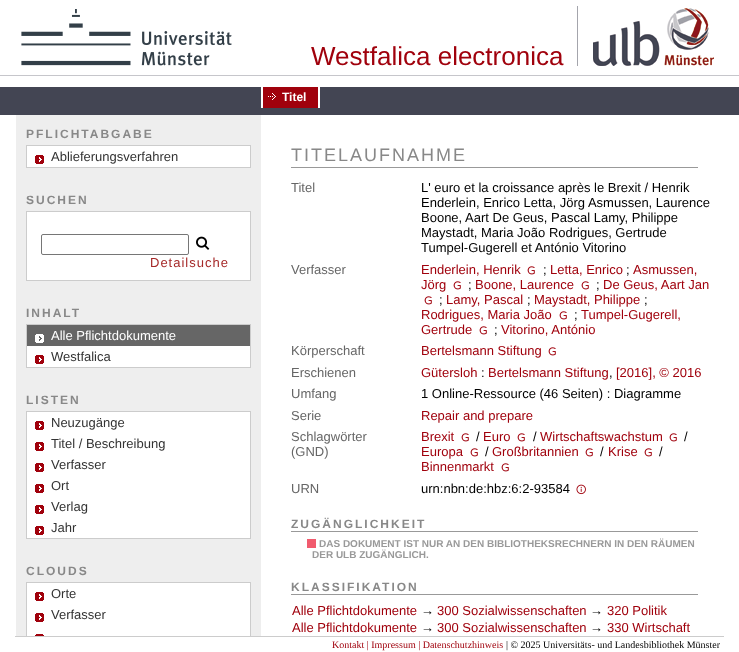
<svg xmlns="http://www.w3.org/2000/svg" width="739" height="652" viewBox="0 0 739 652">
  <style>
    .t1 { font: 26px Liberation Sans; fill: #a0010c; }
    .t2 { font: bold 12px Liberation Sans; fill: #fff; }
    .t3 { font: bold 12px Liberation Sans; letter-spacing: 2px; fill: #888; }
    .t4 { font: 13px Liberation Sans; fill: #333; }
    .t5 { font: 13px Liberation Sans; letter-spacing: 1px; fill: #a52828; }
    .t6 { font: 13px Liberation Sans; fill: #fff; }
    .t7 { font: 18px Liberation Sans; letter-spacing: 2px; fill: #888; }
    .t8 { font: 13px Liberation Sans; fill: #666; }
    .t9 { font: 13px Liberation Sans; fill: #000; }
    .t10 { font: 13px Liberation Sans; fill: #a0010c; }
    .t11 { font: bold 10px Liberation Sans; fill: #999; }
    .t12 { font: 10px Liberation Serif; fill: #a0010c; }
    .t13 { font: 10px Liberation Serif; fill: #000; }
  </style>
  <rect width="100%" height="100%" fill="#fff"/>
  <image x="21" y="9" width="211" height="57" href="images/1.png"/>
  <text x="311" y="65" class="t1">Westfalica electronica</text>
  <rect x="577" y="6" width="1" height="60" fill="#a4a5ac"/>
  <image x="593" y="8" width="121" height="58" href="images/2.png"/>
  <rect x="0" y="75" width="739" height="1" fill="#c6c6cb"/>
  <rect x="0" y="87" width="739" height="28" fill="#434553"/>
  <rect x="318" y="87" width="2" height="21" fill="#fff"/>
  <rect x="261" y="87" width="2" height="21" fill="#fff"/>
  <rect x="263" y="87" width="55" height="21" fill="#a0010c"/>
  <image x="268" y="93" width="8" height="7" href="images/3.png"/>
  <text x="282" y="101" class="t2">Titel</text>
  <rect x="16" y="115" width="245" height="521" fill="#eee"/>
  <text x="26" y="138" class="t3">PFLICHTABGABE</text>
  <rect x="26.5" y="145.5" width="224" height="22" fill="#fff" stroke="#ccc"/>
  <image x="35" y="155" width="9" height="9" href="images/4.png"/>
  <text x="51" y="161" class="t4">Ablieferungsverfahren</text>
  <text x="26" y="204" class="t3">SUCHEN</text>
  <rect x="26.5" y="211.5" width="224" height="69" fill="#fff" stroke="#ccc"/>
  <rect x="41.5" y="234.5" width="147" height="20" rx="1.5" fill="none" stroke="#767676"/>
  <image x="196" y="236" width="14" height="14" href="images/5.png"/>
  <text x="150" y="267" class="t5">Detailsuche</text>
  <text x="26" y="317" class="t3">INHALT</text>
  <rect x="27" y="346" width="223" height="21" fill="#fff"/>
  <rect x="26.5" y="324.5" width="224" height="43" fill="none" stroke="#ccc"/>
  <rect x="27" y="325" width="223" height="21" fill="#666"/>
  <image x="35" y="334" width="9" height="9" href="images/6.png"/>
  <text x="51" y="340" class="t6">Alle Pflichtdokumente</text>
  <image x="35" y="355" width="9" height="9" href="images/4.png"/>
  <text x="51" y="361" class="t4">Westfalica</text>
  <text x="26" y="404" class="t3">LISTEN</text>
  <rect x="26.5" y="411.5" width="224" height="127" fill="#fff" stroke="#ccc"/>
  <image x="35" y="421" width="9" height="9" href="images/4.png"/>
  <text x="51" y="427" class="t4">Neuzugänge</text>
  <image x="35" y="442" width="9" height="9" href="images/4.png"/>
  <text x="51" y="448" class="t4">Titel / Beschreibung</text>
  <image x="35" y="463" width="9" height="9" href="images/4.png"/>
  <text x="51" y="469" class="t4">Verfasser</text>
  <image x="35" y="484" width="9" height="9" href="images/4.png"/>
  <text x="51" y="490" class="t4">Ort</text>
  <image x="35" y="505" width="9" height="9" href="images/4.png"/>
  <text x="51" y="511" class="t4">Verlag</text>
  <image x="35" y="526" width="9" height="9" href="images/4.png"/>
  <text x="51" y="532" class="t4">Jahr</text>
  <text x="26" y="575" class="t3">CLOUDS</text>
  <rect x="27" y="583" width="223" height="53" fill="#fff"/>
  <rect x="26.5" y="582.5" width="224" height="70" fill="none" stroke="#ccc"/>
  <image x="35" y="592" width="9" height="9" href="images/4.png"/>
  <text x="51" y="598" class="t4">Orte</text>
  <image x="35" y="613" width="9" height="9" href="images/4.png"/>
  <text x="51" y="619" class="t4">Verfasser</text>
  <image x="35" y="634" width="9" height="2" href="images/7.png"/>
  <rect x="291" y="167" width="407" height="1" fill="#999"/>
  <text x="291" y="161" class="t7">TITELAUFNAHME</text>
  <text x="291" y="192" class="t8">Titel</text>
  <text x="421" y="192" class="t9">L' euro et la croissance après le Brexit / Henrik</text>
  <text x="421" y="207" class="t9">Enderlein, Enrico Letta, Jörg Asmussen, Laurence</text>
  <text x="421" y="222" class="t9">Boone, Aart De Geus, Pascal Lamy, Philippe</text>
  <text x="421" y="237" class="t9">Maystadt, Maria João Rodrigues, Gertrude</text>
  <text x="421" y="252" class="t9">Tumpel-Gugerell et António Vitorino</text>
  <text x="291" y="274" class="t8">Verfasser</text>
  <text x="421" y="274" class="t10">Enderlein, Henrik</text>
  <image x="527" y="266" width="8" height="9" href="images/8.png"/>
  <text x="543" y="274" class="t9">;</text>
  <text x="550" y="274" class="t10">Letta, Enrico</text>
  <text x="626" y="274" class="t9">;</text>
  <text x="633" y="274" class="t10">Asmussen,</text>
  <text x="421" y="289" class="t10">Jörg</text>
  <image x="453" y="281" width="8" height="9" href="images/8.png"/>
  <text x="468" y="289" class="t9">;</text>
  <text x="475" y="289" class="t10">Boone, Laurence</text>
  <image x="581" y="281" width="8" height="9" href="images/8.png"/>
  <text x="596" y="289" class="t9">;</text>
  <text x="603" y="289" class="t10">De Geus, Aart Jan</text>
  <image x="424" y="296" width="8" height="9" href="images/8.png"/>
  <text x="439" y="304" class="t9">;</text>
  <text x="446" y="304" class="t10">Lamy, Pascal</text>
  <text x="527" y="304" class="t9">;</text>
  <text x="534" y="304" class="t10">Maystadt, Philippe</text>
  <text x="644" y="304" class="t9">;</text>
  <text x="421" y="319" class="t10">Rodrigues, Maria João</text>
  <image x="559" y="311" width="8" height="9" href="images/8.png"/>
  <text x="574" y="319" class="t9">;</text>
  <text x="581" y="319" class="t10">Tumpel-Gugerell,</text>
  <text x="421" y="334" class="t10">Gertrude</text>
  <image x="479" y="326" width="8" height="9" href="images/8.png"/>
  <text x="494" y="334" class="t9">;</text>
  <text x="501" y="334" class="t10">Vitorino, António</text>
  <text x="291" y="355" class="t8">Körperschaft</text>
  <text x="421" y="355" class="t10">Bertelsmann Stiftung</text>
  <image x="548" y="347" width="8" height="9" href="images/8.png"/>
  <text x="291" y="377" class="t8">Erschienen</text>
  <text x="421" y="377" class="t10">Gütersloh</text>
  <text x="481" y="377" class="t9">:</text>
  <text x="488" y="377" class="t10">Bertelsmann Stiftung</text>
  <text x="609" y="377" class="t9">,</text>
  <text x="616" y="377" class="t10">[2016], © 2016</text>
  <text x="291" y="398" class="t8">Umfang</text>
  <text x="421" y="398" class="t9">1 Online-Ressource (46 Seiten) : Diagramme</text>
  <text x="291" y="420" class="t8">Serie</text>
  <text x="421" y="420" class="t10">Repair and prepare</text>
  <text x="291" y="441" class="t8">Schlagwörter</text>
  <text x="291" y="456" class="t8">(GND)</text>
  <text x="421" y="441" class="t10">Brexit</text>
  <image x="461" y="433" width="8" height="9" href="images/8.png"/>
  <text x="476" y="441" class="t9">/</text>
  <text x="483" y="441" class="t10">Euro</text>
  <image x="517" y="433" width="8" height="9" href="images/8.png"/>
  <text x="533" y="441" class="t9">/</text>
  <text x="540" y="441" class="t10">Wirtschaftswachstum</text>
  <image x="669" y="433" width="8" height="9" href="images/8.png"/>
  <text x="684" y="441" class="t9">/</text>
  <text x="421" y="456" class="t10">Europa</text>
  <image x="470" y="448" width="8" height="9" href="images/8.png"/>
  <text x="485" y="456" class="t9">/</text>
  <text x="492" y="456" class="t10">Großbritannien</text>
  <image x="585" y="448" width="8" height="9" href="images/8.png"/>
  <text x="600" y="456" class="t9">/</text>
  <text x="608" y="456" class="t10">Krise</text>
  <image x="644" y="448" width="8" height="9" href="images/8.png"/>
  <text x="659" y="456" class="t9">/</text>
  <text x="421" y="471" class="t10">Binnenmarkt</text>
  <image x="501" y="463" width="8" height="9" href="images/8.png"/>
  <text x="291" y="493" class="t8">URN</text>
  <text x="421" y="493" class="t9">urn:nbn:de:hbz:6:2-93584</text>
  <image x="576" y="484" width="10" height="11" href="images/9.png"/>
  <rect x="291" y="531" width="407" height="1" fill="#999"/>
  <text x="291" y="528" class="t3">ZUGÄNGLICHKEIT</text>
  <rect x="307" y="539" width="9" height="9" fill="#f15b6e"/>
  <text x="319" y="547" class="t11">DAS DOKUMENT IST NUR AN DEN BIBLIOTHEKSRECHNERN IN DEN RÄUMEN</text>
  <text x="312" y="558" class="t11">DER ULB ZUGÄNGLICH.</text>
  <rect x="291" y="594" width="407" height="1" fill="#999"/>
  <text x="291" y="591" class="t3">KLASSIFIKATION</text>
  <text x="292" y="615" class="t10">Alle Pflichtdokumente</text>
  <text x="421" y="615" class="t9">→</text>
  <text x="437" y="615" class="t10">300 Sozialwissenschaften</text>
  <text x="590" y="615" class="t9">→</text>
  <text x="607" y="615" class="t10">320 Politik</text>
  <text x="292" y="632" class="t10">Alle Pflichtdokumente</text>
  <text x="421" y="632" class="t9">→</text>
  <text x="437" y="632" class="t10">300 Sozialwissenschaften</text>
  <text x="590" y="632" class="t9">→</text>
  <text x="607" y="632" class="t10">330 Wirtschaft</text>
  <rect x="26" y="637" width="225" height="15" fill="#fff"/>
  <rect x="15" y="636" width="709" height="1" fill="#ccc"/>
  <text x="332" y="648" class="t12">Kontakt | Impressum | Datenschutzhinweis</text>
  <text x="506" y="648" class="t13">| © 2025 Universitäts- und Landesbibliothek Münster</text>
</svg>
